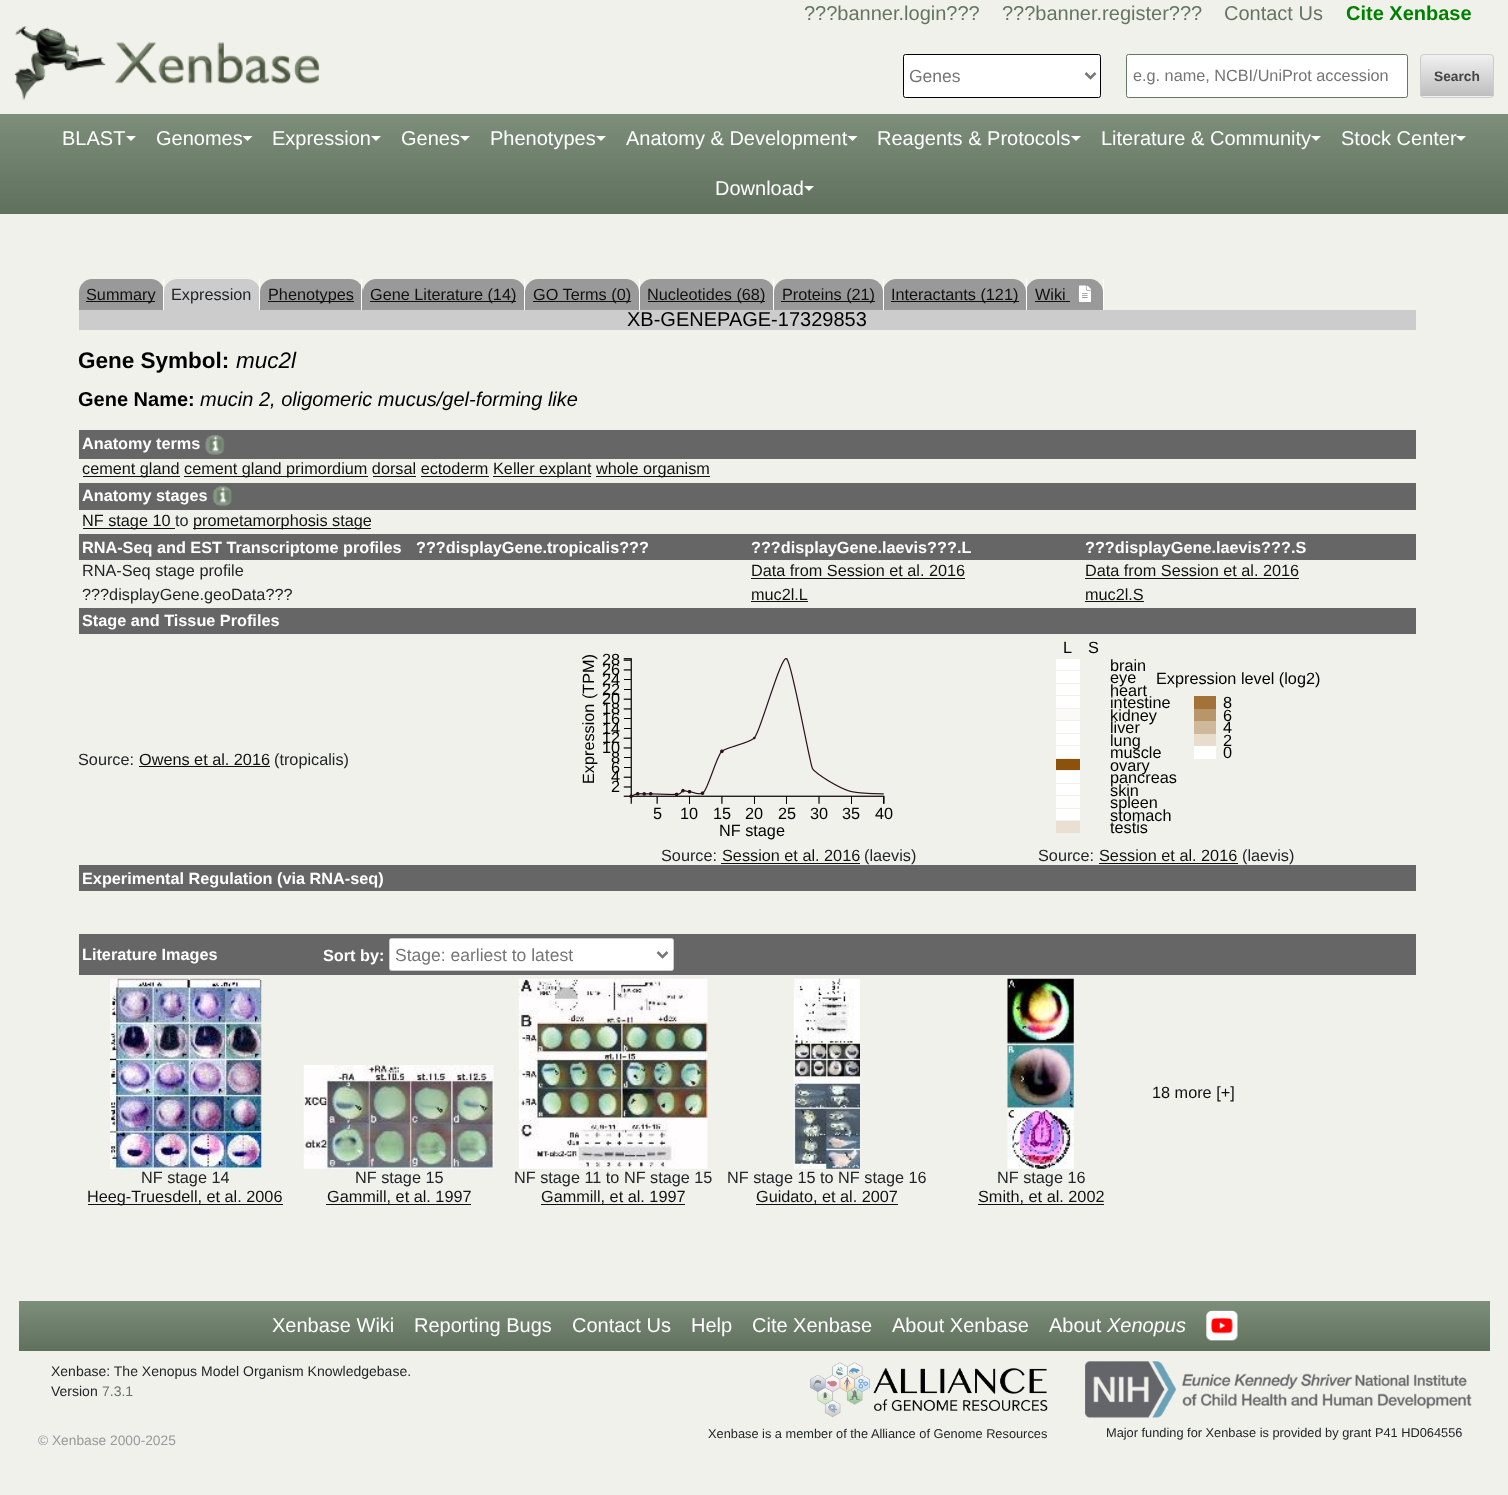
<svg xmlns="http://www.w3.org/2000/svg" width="1508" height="1495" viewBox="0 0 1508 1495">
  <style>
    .t1 { font: 20px Liberation Sans; fill: #647562; }
    .t2 { font: bold 20px Liberation Sans; fill: #008000; }
    .t3 { font: 17.5px Liberation Sans; fill: #757575; }
    .t4 { font: 16.25px Liberation Sans; fill: #757575; }
    .t5 { font: bold 13.75px Liberation Sans; fill: #444; }
    .t6 { font: 20px Liberation Sans; fill: #fff; }
    .t7 { font: 16.25px Liberation Sans; fill: #111; }
    .t8 { font: 16.25px Liberation Sans; fill: #212529; }
    .t9 { font: 20px Liberation Sans; fill: #000; }
    .t10 { font: bold 22.5px Liberation Sans; fill: #000; }
    .t11 { font: italic 22.5px Liberation Sans; fill: #000; }
    .t12 { font: bold 20px Liberation Sans; fill: #000; }
    .t13 { font: italic 20px Liberation Sans; fill: #000; }
    .t14 { font: bold 16.25px Liberation Sans; fill: #fff; }
    .t15 { font: 16.25px Liberation Sans; fill: #000; }
    .t16 { font: italic 20px Liberation Sans; fill: #fff; }
    .t17 { font: 14px Liberation Sans; fill: #212529; }
    .t18 { font: 14px Liberation Sans; fill: #647562; }
    .t19 { font: 13.75px Liberation Sans; fill: #999; }
    .t20 { font: 12.8px Liberation Sans; fill: #212529; }
  </style>
  <defs>
    <clipPath id="clip1"><rect x="1420" y="54" width="74" height="44" rx="4"/></clipPath>
    <linearGradient id="g1" gradientUnits="userSpaceOnUse" x1="1457" y1="55" x2="1457" y2="96"><stop offset="0" stop-color="#f1f1f1"/><stop offset="1" stop-color="#bebebe"/></linearGradient>
    <linearGradient id="g2" gradientUnits="userSpaceOnUse" x1="1457" y1="96" x2="1457" y2="138"><stop offset="0" stop-color="#f1f1f1"/><stop offset="1" stop-color="#bebebe"/></linearGradient>
    <linearGradient id="g3" gradientUnits="userSpaceOnUse" x1="754" y1="114" x2="754" y2="214"><stop offset="0" stop-color="#7d8e7b"/><stop offset="1" stop-color="#5f705d"/></linearGradient>
    <linearGradient id="g4" gradientUnits="userSpaceOnUse" x1="754" y1="1301" x2="754" y2="1351"><stop offset="0" stop-color="#7d8e7b"/><stop offset="1" stop-color="#5f705d"/></linearGradient>
  </defs>
  <rect width="100%" height="100%" fill="#f0f1ea"/>
  <text x="804" y="20" class="t1">???banner.login???</text>
  <text x="1002" y="20" class="t1">???banner.register???</text>
  <text x="1224" y="20" class="t1">Contact Us</text>
  <text x="1346" y="20" class="t2">Cite Xenbase</text>
  <image x="14" y="26" width="306" height="75" href="images/1.png"/>
  <rect x="903.5" y="54.5" width="197" height="43" rx="2" fill="#fff" stroke="#000"/>
  <path d="M1085.5 73L1090.5 78L1095.5 73" fill="none" stroke="#777" stroke-width="2.5"/>
  <text x="909" y="82" class="t3">Genes</text>
  <rect x="1126.5" y="54.5" width="281" height="43" rx="2" fill="#fff" stroke="#667764"/>
  <text x="1133" y="81" class="t4">e.g. name, NCBI/UniProt accession</text>
  <g clip-path="url(#clip1)">
    <rect x="1420" y="55" width="74" height="41" fill="url(#g1)"/>
    <rect x="1420" y="96" width="74" height="2" fill="url(#g2)"/>
  </g>
  <rect x="1420.5" y="54.5" width="73" height="43" rx="3.5" fill="none" stroke="#ccc"/>
  <text x="1434" y="81" class="t5">Search</text>
  <rect x="0" y="114" width="1508" height="100" fill="url(#g3)"/>
  <text x="62" y="145" class="t6">BLAST</text>
  <path d="M126 136H136L131 141Z" fill="#fff"/>
  <text x="156" y="145" class="t6">Genomes</text>
  <path d="M242.5 136H252.5L247.5 141Z" fill="#fff"/>
  <text x="272" y="145" class="t6">Expression</text>
  <path d="M371 136H381L376 141Z" fill="#fff"/>
  <text x="401" y="145" class="t6">Genes</text>
  <path d="M460 136H470L465 141Z" fill="#fff"/>
  <text x="490" y="145" class="t6">Phenotypes</text>
  <path d="M596 136H606L601 141Z" fill="#fff"/>
  <text x="626" y="145" class="t6">Anatomy &amp; Development</text>
  <path d="M847.5 136H857.5L852.5 141Z" fill="#fff"/>
  <text x="877" y="145" class="t6">Reagents &amp; Protocols</text>
  <path d="M1071 136H1081L1076 141Z" fill="#fff"/>
  <text x="1101" y="145" class="t6">Literature &amp; Community</text>
  <path d="M1311 136H1321L1316 141Z" fill="#fff"/>
  <text x="1341" y="145" class="t6">Stock Center</text>
  <path d="M1456 136H1466L1461 141Z" fill="#fff"/>
  <text x="715" y="195" class="t6">Download</text>
  <path d="M804 186H814L809 191Z" fill="#fff"/>
  <path d="M92 279H151C158 279 164 285 164 292V310H79V292C79 285 85 279 92 279Z" fill="#999"/>
  <rect x="163" y="279" width="1" height="32" fill="#fff"/>
  <rect x="86" y="301" width="69" height="1" fill="#111"/>
  <text x="86" y="300" class="t7">Summary</text>
  <path d="M177 279H247C254 279 260 285 260 292V310H164V292C164 285 170 279 177 279Z" fill="#ccc"/>
  <rect x="259" y="279" width="1" height="32" fill="#fff"/>
  <text x="171" y="300" class="t8">Expression</text>
  <path d="M273 279H350C357 279 363 285 363 292V310H260V292C260 285 266 279 273 279Z" fill="#999"/>
  <rect x="361" y="279" width="1" height="32" fill="#fff"/>
  <rect x="268" y="301" width="86" height="1" fill="#111"/>
  <text x="268" y="300" class="t7">Phenotypes</text>
  <path d="M376 279H512C519 279 525 285 525 292V310H363V292C363 285 369 279 376 279Z" fill="#999"/>
  <rect x="524" y="279" width="1" height="32" fill="#fff"/>
  <rect x="370" y="301" width="146" height="1" fill="#111"/>
  <text x="370" y="300" class="t7">Gene Literature (14)</text>
  <path d="M538 279H626C633 279 639 285 639 292V310H525V292C525 285 531 279 538 279Z" fill="#999"/>
  <path d="M652 279H761C768 279 774 285 774 292V310H639V292C639 285 645 279 652 279Z" fill="#999"/>
  <rect x="639" y="279" width="1" height="32" fill="#fff"/>
  <rect x="533" y="301" width="98" height="1" fill="#111"/>
  <text x="533" y="300" class="t7">GO Terms (0)</text>
  <rect x="773" y="279" width="1" height="32" fill="#fff"/>
  <rect x="648" y="301" width="117" height="1" fill="#111"/>
  <text x="647" y="300" class="t7">Nucleotides (68)</text>
  <path d="M787 279H870C877 279 883 285 883 292V310H774V292C774 285 780 279 787 279Z" fill="#999"/>
  <path d="M896 279H1013C1020 279 1026 285 1026 292V310H883V292C883 285 889 279 896 279Z" fill="#999"/>
  <rect x="883" y="279" width="1" height="32" fill="#fff"/>
  <rect x="781" y="301" width="94" height="1" fill="#111"/>
  <text x="782" y="300" class="t7">Proteins (21)</text>
  <path d="M1039 279H1090C1097 279 1103 285 1103 292V310H1026V292C1026 285 1032 279 1039 279Z" fill="#999"/>
  <rect x="1026" y="279" width="1" height="32" fill="#fff"/>
  <rect x="891" y="301" width="128" height="1" fill="#111"/>
  <text x="891" y="300" class="t7">Interactants (121)</text>
  <rect x="1103" y="279" width="1" height="32" fill="#fff"/>
  <text x="1035" y="300" class="t7">Wiki</text>
  <rect x="1035" y="301" width="35" height="1" fill="#111"/>
  <rect x="1078" y="286" width="1" height="17" fill="#808080"/>
  <image x="1079" y="285" width="12" height="17" href="images/3.png"/>
  <image x="1079" y="285" width="12" height="17" href="images/4.png"/>
  <image x="1078" y="285" width="13" height="17" href="images/2.png"/>
  <rect x="79" y="310" width="1337" height="20" fill="#ccc"/>
  <text x="627" y="326" class="t9">XB-GENEPAGE-17329853</text>
  <text x="78" y="368" class="t10">Gene Symbol:</text>
  <text x="236" y="368" class="t11">muc2l</text>
  <text x="78" y="406" class="t12">Gene Name:</text>
  <text x="200" y="406" class="t13">mucin 2, oligomeric mucus/gel-forming like</text>
  <rect x="79" y="430" width="1337" height="29" fill="#666"/>
  <text x="82" y="449" class="t14">Anatomy terms</text>
  <image x="205" y="435" width="20" height="20" href="images/5.png"/>
  <rect x="83" y="476" width="97" height="1" fill="#111"/>
  <text x="82" y="474" class="t7">cement gland</text>
  <rect x="184" y="476" width="184" height="1" fill="#111"/>
  <text x="184" y="474" class="t7">cement gland primordium dorsal ectoderm</text>
  <rect x="493" y="476" width="98" height="1" fill="#111"/>
  <text x="493" y="474" class="t7">Keller explant</text>
  <rect x="596" y="476" width="114" height="1" fill="#111"/>
  <text x="596" y="474" class="t7">whole organism</text>
  <rect x="373" y="476" width="43" height="1" fill="#111"/>
  <rect x="421" y="476" width="68" height="1" fill="#111"/>
  <rect x="79" y="483" width="1337" height="27" fill="#666"/>
  <text x="82" y="501" class="t14">Anatomy stages</text>
  <image x="212" y="486" width="21" height="21" href="images/6.png"/>
  <rect x="83" y="528" width="92" height="1" fill="#111"/>
  <text x="82" y="526" class="t7">NF stage 10</text>
  <text x="175" y="526" class="t8">to</text>
  <rect x="193" y="528" width="178" height="1" fill="#111"/>
  <text x="193" y="526" class="t7">prometamorphosis stage</text>
  <rect x="79" y="534" width="1337" height="26" fill="#666"/>
  <text x="82" y="553" class="t14">RNA-Seq and EST Transcriptome profiles</text>
  <text x="416" y="553" class="t14">???displayGene.tropicalis???</text>
  <text x="751" y="553" class="t14">???displayGene.laevis???.L</text>
  <text x="1085" y="553" class="t14">???displayGene.laevis???.S</text>
  <text x="82" y="576" class="t8">RNA-Seq stage profile</text>
  <text x="751" y="576" class="t7">Data from Session et al. 2016</text>
  <rect x="751" y="578" width="214" height="1" fill="#111"/>
  <text x="1085" y="576" class="t7">Data from Session et al. 2016</text>
  <rect x="1085" y="578" width="214" height="1" fill="#111"/>
  <text x="82" y="600" class="t8">???displayGene.geoData???</text>
  <text x="751" y="600" class="t7">muc2l.L</text>
  <rect x="751" y="601" width="57" height="1" fill="#111"/>
  <text x="1085" y="600" class="t7">muc2l.S</text>
  <rect x="1085" y="601" width="59" height="1" fill="#111"/>
  <rect x="79" y="608" width="1337" height="26" fill="#666"/>
  <text x="82" y="626" class="t14">Stage and Tissue Profiles</text>
  <text x="78" y="765" class="t8">Source:</text>
  <text x="139" y="765" class="t7">Owens et al. 2016</text>
  <rect x="139" y="766" width="131" height="1" fill="#111"/>
  <text x="274" y="765" class="t8">(tropicalis)</text>
  <text x="594" y="784" transform="rotate(-90 594 784)" class="t15">Expression (TPM)</text>
  <text x="602" y="665" class="t15">28</text>
  <image x="623" y="658" width="262" height="146" href="images/7.png"/>
  <text x="602" y="675" class="t15">26</text>
  <text x="602" y="685" class="t15">24</text>
  <text x="602" y="695" class="t15">22</text>
  <text x="602" y="704" class="t15">20</text>
  <text x="602" y="714" class="t15">18</text>
  <text x="602" y="724" class="t15">16</text>
  <text x="602" y="734" class="t15">14</text>
  <text x="602" y="743" class="t15">12</text>
  <text x="602" y="753" class="t15">10</text>
  <text x="611" y="763" class="t15">8</text>
  <text x="611" y="773" class="t15">6</text>
  <text x="611" y="782" class="t15">4</text>
  <text x="611" y="792" class="t15">2</text>
  <text x="653" y="819" class="t15">5</text>
  <text x="680" y="819" class="t15">10</text>
  <text x="713" y="819" class="t15">15</text>
  <text x="745" y="819" class="t15">20</text>
  <text x="778" y="819" class="t15">25</text>
  <text x="810" y="819" class="t15">30</text>
  <text x="842" y="819" class="t15">35</text>
  <text x="875" y="819" class="t15">40</text>
  <text x="719" y="836" class="t15">NF stage</text>
  <text x="661" y="861" class="t8">Source:</text>
  <text x="722" y="861" class="t7">Session et al. 2016</text>
  <rect x="721" y="863" width="139" height="1" fill="#111"/>
  <text x="864" y="861" class="t8">(laevis)</text>
  <text x="1063" y="653" class="t15">L</text>
  <text x="1088" y="653" class="t15">S</text>
  <text x="1110" y="671" class="t15">brain</text>
  <rect x="1056" y="659" width="24" height="11" fill="#fff"/>
  <text x="1110" y="683" class="t15">eye</text>
  <rect x="1056" y="671" width="24" height="12" fill="#fff"/>
  <text x="1156" y="684" class="t15">Expression level (log2)</text>
  <text x="1110" y="696" class="t15">heart</text>
  <rect x="1056" y="684" width="24" height="11" fill="#fff"/>
  <text x="1110" y="708" class="t15">intestine</text>
  <rect x="1056" y="696" width="24" height="12" fill="#fff"/>
  <text x="1223" y="708" class="t15">8</text>
  <rect x="1194" y="696" width="22" height="13" fill="#a27238"/>
  <text x="1110" y="721" class="t15">kidney</text>
  <rect x="1056" y="709" width="24" height="11" fill="#fbfaf7"/>
  <text x="1223" y="721" class="t15">6</text>
  <rect x="1194" y="709" width="22" height="12" fill="#b9956a"/>
  <text x="1110" y="733" class="t15">liver</text>
  <rect x="1056" y="721" width="24" height="12" fill="#fff"/>
  <text x="1223" y="733" class="t15">4</text>
  <rect x="1194" y="721" width="22" height="13" fill="#d0b89c"/>
  <text x="1110" y="746" class="t15">lung</text>
  <rect x="1056" y="734" width="24" height="11" fill="#fff"/>
  <text x="1223" y="746" class="t15">2</text>
  <rect x="1194" y="734" width="22" height="12" fill="#e8dccd"/>
  <text x="1110" y="758" class="t15">muscle</text>
  <rect x="1056" y="746" width="24" height="12" fill="#fff"/>
  <text x="1223" y="758" class="t15">0</text>
  <rect x="1194" y="746" width="22" height="13" fill="#fff"/>
  <text x="1110" y="771" class="t15">ovary</text>
  <rect x="1056" y="759" width="24" height="11" fill="#8c510a"/>
  <text x="1110" y="783" class="t15">pancreas</text>
  <rect x="1056" y="771" width="24" height="12" fill="#fff"/>
  <text x="1110" y="796" class="t15">skin</text>
  <rect x="1056" y="784" width="24" height="11" fill="#fff"/>
  <text x="1110" y="808" class="t15">spleen</text>
  <rect x="1056" y="796" width="24" height="12" fill="#fefefd"/>
  <text x="1110" y="821" class="t15">stomach</text>
  <rect x="1056" y="809" width="24" height="11" fill="#fff"/>
  <text x="1110" y="833" class="t15">testis</text>
  <rect x="1056" y="821" width="24" height="12" fill="#eadfd2"/>
  <text x="1038" y="861" class="t8">Source:</text>
  <text x="1099" y="861" class="t7">Session et al. 2016</text>
  <rect x="1099" y="863" width="139" height="1" fill="#111"/>
  <text x="1242" y="861" class="t8">(laevis)</text>
  <rect x="79" y="865" width="1337" height="26" fill="#666"/>
  <text x="82" y="884" class="t14">Experimental Regulation (via RNA-seq)</text>
  <rect x="79" y="934" width="1337" height="41" fill="#666"/>
  <text x="82" y="960" class="t14">Literature Images</text>
  <text x="323" y="961" class="t14">Sort by:</text>
  <rect x="389.5" y="938.5" width="284" height="32" rx="2" fill="#fff" stroke="#ccc"/>
  <path d="M657.5 952L662.5 957L667.5 952" fill="none" stroke="#777" stroke-width="2.5"/>
  <text x="395" y="961" class="t3">Stage: earliest to latest</text>
  <text x="1152" y="1098" class="t7">18 more [+]</text>
  <image x="110" y="978" width="152" height="191" href="images/8.png"/>
  <text x="141" y="1183" class="t8">NF stage 14</text>
  <rect x="88" y="1204" width="195" height="1" fill="#111"/>
  <text x="87" y="1202" class="t7">Heeg-Truesdell, et al. 2006</text>
  <image x="303" y="1065" width="191" height="104" href="images/9.png"/>
  <text x="355" y="1183" class="t8">NF stage 15</text>
  <rect x="326" y="1204" width="145" height="1" fill="#111"/>
  <text x="327" y="1202" class="t7">Gammill, et al. 1997</text>
  <image x="518" y="978" width="190" height="191" href="images/10.png"/>
  <text x="514" y="1183" class="t8">NF stage 11 to NF stage 15</text>
  <rect x="541" y="1204" width="144" height="1" fill="#111"/>
  <text x="541" y="1202" class="t7">Gammill, et al. 1997</text>
  <image x="793" y="978" width="67" height="191" href="images/11.png"/>
  <text x="727" y="1183" class="t8">NF stage 15 to NF stage 16</text>
  <rect x="756" y="1204" width="142" height="1" fill="#111"/>
  <text x="756" y="1202" class="t7">Guidato, et al. 2007</text>
  <image x="1007" y="978" width="67" height="191" href="images/12.png"/>
  <text x="997" y="1183" class="t8">NF stage 16</text>
  <rect x="978" y="1204" width="126" height="1" fill="#111"/>
  <text x="978" y="1202" class="t7">Smith, et al. 2002</text>
  <rect x="19" y="1301" width="1471" height="50" fill="url(#g4)"/>
  <text x="272" y="1332" class="t6">Xenbase Wiki</text>
  <text x="414" y="1332" class="t6">Reporting Bugs</text>
  <text x="572" y="1332" class="t6">Contact Us</text>
  <text x="691" y="1332" class="t6">Help</text>
  <text x="752" y="1332" class="t6">Cite Xenbase</text>
  <text x="892" y="1332" class="t6">About Xenbase</text>
  <text x="1049" y="1332" class="t6">About</text>
  <text x="1107" y="1332" class="t16">Xenopus</text>
  <image x="1206" y="1310" width="32" height="31" href="images/13.png"/>
  <text x="51" y="1376" class="t17">Xenbase: The Xenopus Model Organism Knowledgebase.</text>
  <text x="51" y="1396" class="t17">Version</text>
  <text x="102" y="1396" class="t18">7.3.1</text>
  <text x="38" y="1445" class="t19">© Xenbase 2000-2025</text>
  <image x="810" y="1362" width="238" height="56" href="images/14.png"/>
  <text x="708" y="1438" class="t20">Xenbase is a member of the Alliance of Genome Resources</text>
  <image x="1085" y="1361" width="387" height="57" href="images/15.png"/>
  <text x="1106" y="1437" class="t20">Major funding for Xenbase is provided by grant P41 HD064556</text>
</svg>
